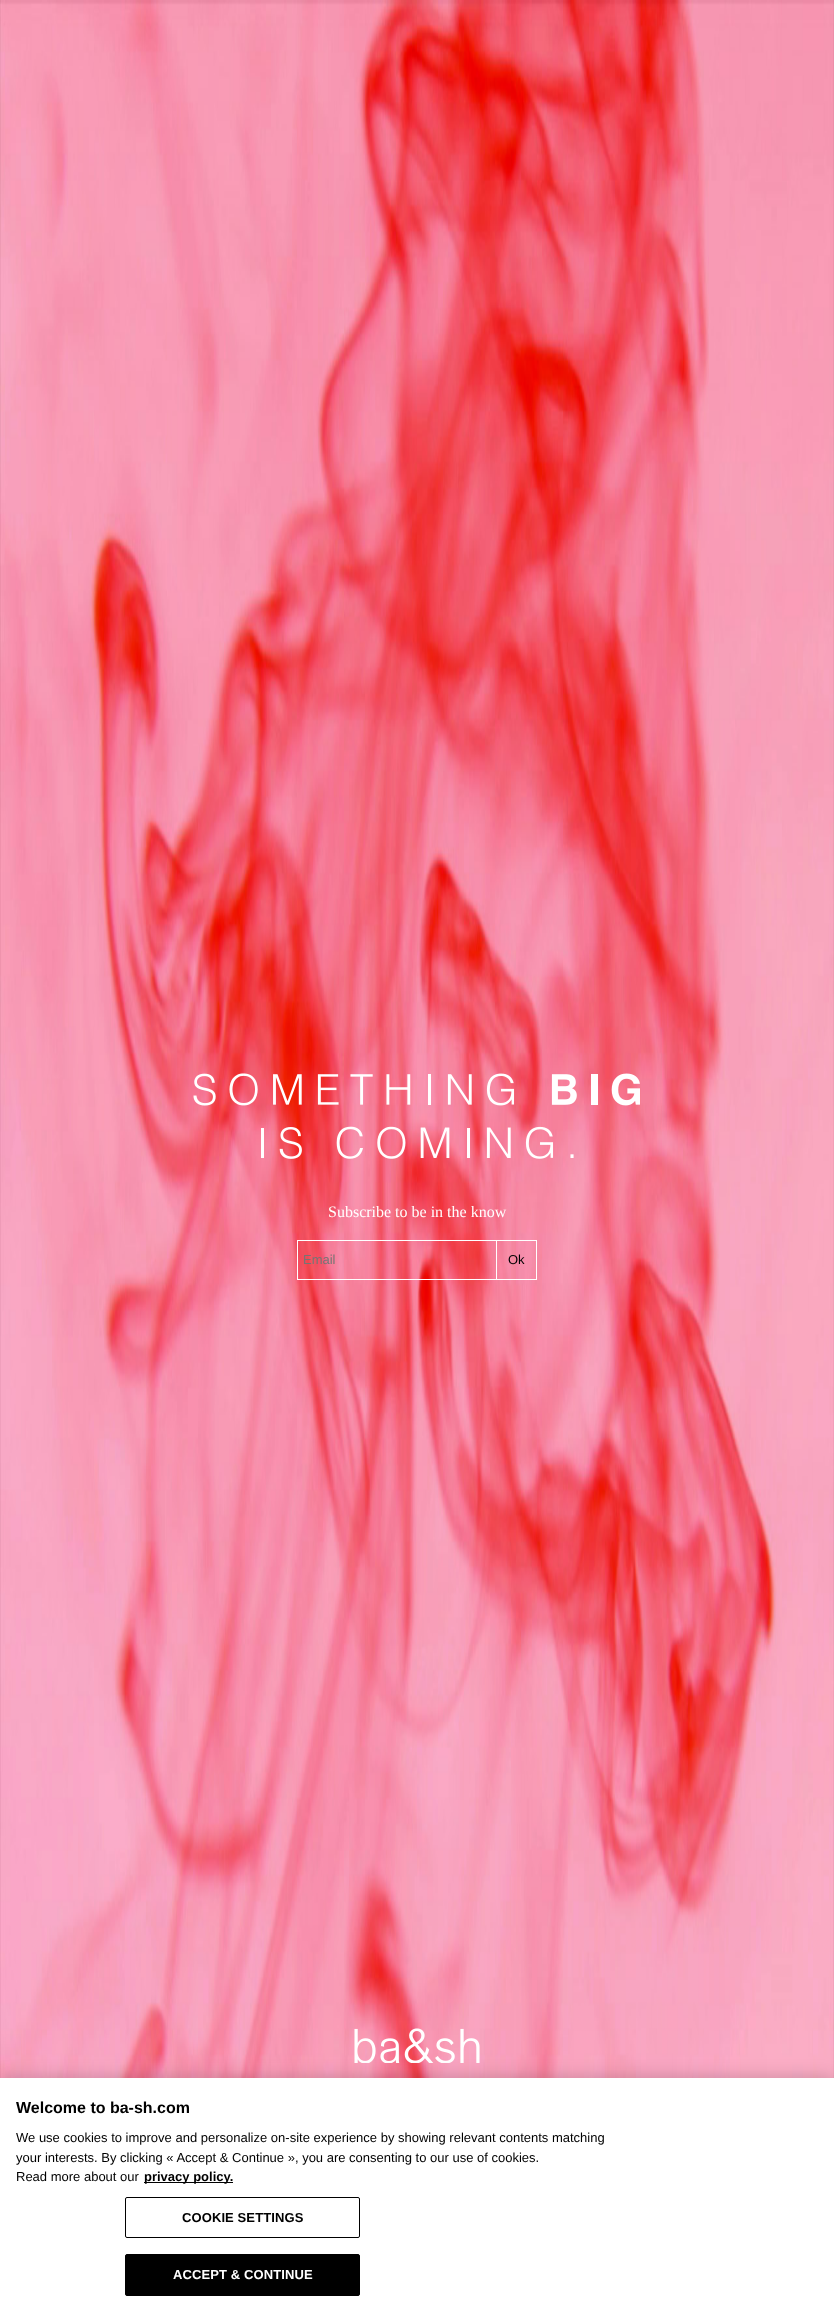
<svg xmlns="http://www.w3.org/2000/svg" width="834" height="2312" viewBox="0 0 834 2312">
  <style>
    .t1 { font: 16px Liberation Serif; fill: #fff; }
    .t2 { font: 13px Liberation Sans; fill: #757575; }
    .t3 { font: 13px Liberation Sans; fill: #000; }
    .t4 { font: bold 16px Liberation Sans; fill: #000; }
    .t5 { font: bold 13px Liberation Sans; fill: #000; }
    .t6 { font: bold 13px Liberation Sans; letter-spacing: 0.1px; fill: #000; }
    .t7 { font: bold 13px Liberation Sans; letter-spacing: 0.1px; fill: #fff; }
  </style>
  <rect width="100%" height="100%" fill="#fff"/>
  <image x="0" y="0" width="834" height="2078" href="images/1.png"/>
  <image x="193" y="1073" width="447" height="86" href="images/2.png"/>
  <text x="328" y="1217" class="t1">Subscribe to be in the know</text>
  <rect x="297.5" y="1240.5" width="199" height="39" fill="none" stroke="#fff"/>
  <text x="303" y="1264" class="t2">Email</text>
  <rect x="497" y="1240" width="40" height="1" fill="#fff"/>
  <rect x="536" y="1240" width="1" height="40" fill="#fff"/>
  <rect x="497" y="1279" width="40" height="1" fill="#fff"/>
  <text x="508" y="1264" class="t3">Ok</text>
  <image x="354" y="2028" width="126" height="35" href="images/3.png"/>
  <rect x="0" y="2078" width="834" height="234" fill="#00000033" filter="blur(9px)"/>
  <rect x="0" y="2078" width="834" height="234" fill="#fff"/>
  <text x="16" y="2113" class="t4">Welcome to ba-sh.com</text>
  <text x="16" y="2142" class="t3">We use cookies to improve and personalize on-site experience by showing relevant contents matching</text>
  <text x="16" y="2162" class="t3">your interests. By clicking « Accept &amp; Continue », you are consenting to our use of cookies.</text>
  <text x="16" y="2181" class="t3">Read more about our</text>
  <rect x="144" y="2182" width="89" height="1" fill="#000"/>
  <text x="144" y="2181" class="t5">privacy policy.</text>
  <rect x="125.5" y="2197.5" width="234" height="40" rx="1.5" fill="none" stroke="#000"/>
  <text x="182" y="2222" class="t6">COOKIE SETTINGS</text>
  <rect x="125.5" y="2254.5" width="234" height="41" rx="1.5" fill="#000" stroke="#000"/>
  <text x="173" y="2279" class="t7">ACCEPT &amp; CONTINUE</text>
</svg>
